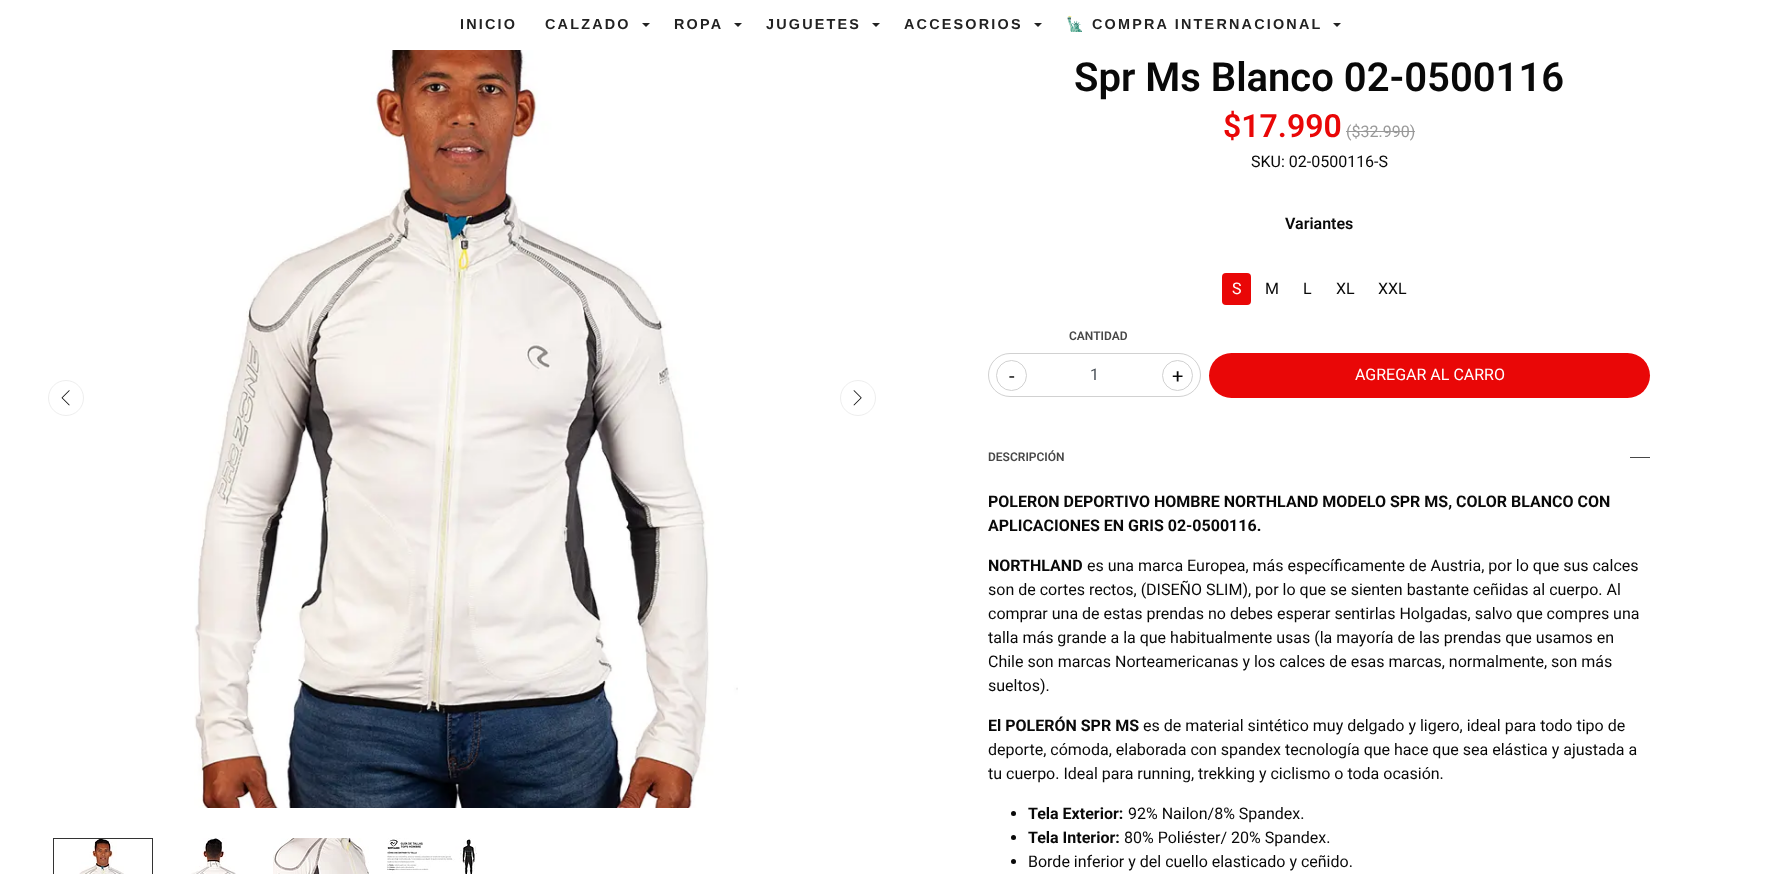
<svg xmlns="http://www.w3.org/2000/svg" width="1781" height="874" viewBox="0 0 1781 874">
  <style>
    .t1 { font: bold 14.4px Liberation Sans; letter-spacing: 2.2px; fill: #222; }
    .t2 { font: bold 14.4px Noto Color Emoji; letter-spacing: 2.2px; fill: #222; }
    .t3 { font: 600 40px Roboto; fill: #090909; }
    .t4 { font: 600 32px Roboto; fill: #e90707; }
    .t5 { font: 16px Roboto; fill: #999; }
    .t6 { font: 16px Roboto; fill: #090909; }
    .t7 { font: 600 16px Roboto; fill: #090909; }
    .t8 { font: 16px Roboto; fill: #fff; }
    .t9 { font: 600 12px Roboto; fill: #474747; }
    .t10 { font: 16px Roboto; fill: #495057; }
    .t11 { font: 20px Roboto; fill: #090909; }
    .t12 { font: bold 16px Roboto; fill: #090909; }
  </style>
  <rect width="100%" height="100%" fill="#fff"/>
  <text x="460" y="29" class="t1">INICIO</text>
  <text x="545" y="29" class="t1">CALZADO</text>
  <path d="M642 23H650L646 27Z" fill="#222"/>
  <text x="674" y="29" class="t1">ROPA</text>
  <path d="M734 23H742L738 27Z" fill="#222"/>
  <text x="766" y="29" class="t1">JUGUETES</text>
  <path d="M872 23H880L876 27Z" fill="#222"/>
  <text x="904" y="29" class="t1">ACCESORIOS</text>
  <path d="M1034 23H1042L1038 27Z" fill="#222"/>
  <text x="1066" y="29" class="t2">🗽</text>
  <text x="1092" y="29" class="t1">COMPRA INTERNACIONAL</text>
  <path d="M1333 23H1341L1337 27Z" fill="#222"/>
  <image x="194" y="50" width="544" height="758" href="images/1.png"/>
  <circle cx="66" cy="398" r="17.5" fill="none" stroke="#eee"/>
  <image x="61" y="390" width="9" height="16" href="images/2.png"/>
  <circle cx="858" cy="398" r="17.5" fill="none" stroke="#eee"/>
  <image x="853" y="390" width="9" height="16" href="images/3.png"/>
  <image x="79" y="839" width="45" height="35" href="images/4.png"/>
  <rect x="53.5" y="838.5" width="99" height="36" fill="none" stroke="#333"/>
  <image x="191" y="838" width="45" height="36" href="images/5.png"/>
  <image x="273" y="838" width="96" height="36" href="images/6.png"/>
  <image x="387" y="838" width="90" height="36" href="images/7.png"/>
  <text x="1074" y="91" class="t3">Spr Ms Blanco 02-0500116</text>
  <text x="1223" y="137" class="t4">$17.990</text>
  <text x="1346" y="137" class="t5">($32.990)</text>
  <rect x="1346" y="131" width="69" height="1" fill="#999"/>
  <text x="1251" y="167" class="t6">SKU: 02-0500116-S</text>
  <text x="1285" y="229" class="t7">Variantes</text>
  <rect x="1222" y="273" width="29" height="32" rx="4" fill="#e90707"/>
  <text x="1232" y="294" class="t8">S</text>
  <text x="1265" y="294" class="t6">M</text>
  <text x="1303" y="294" class="t6">L</text>
  <text x="1336" y="294" class="t6">XL</text>
  <text x="1378" y="294" class="t6">XXL</text>
  <text x="1069" y="340" class="t9">CANTIDAD</text>
  <rect x="988.5" y="353.5" width="212" height="43" rx="21.5" fill="none" stroke="#d1d1d1"/>
  <text x="1090" y="380" class="t10">1</text>
  <circle cx="1011.5" cy="375.5" r="15" fill="none" stroke="#d1d1d1"/>
  <text x="1009" y="383" class="t11">-</text>
  <circle cx="1177.5" cy="375.5" r="15" fill="none" stroke="#d1d1d1"/>
  <text x="1172" y="383" class="t11">+</text>
  <rect x="1209" y="353" width="441" height="45" rx="22.5" fill="#e90707"/>
  <text x="1355" y="380" class="t8">AGREGAR AL CARRO</text>
  <text x="988" y="461" class="t9">DESCRIPCIÓN</text>
  <rect x="1630" y="457" width="20" height="1" fill="#474747"/>
  <text x="988" y="507" class="t12">POLERON DEPORTIVO HOMBRE NORTHLAND MODELO SPR MS, COLOR BLANCO CON</text>
  <text x="988" y="531" class="t12">APLICACIONES EN GRIS 02-0500116.</text>
  <text x="988" y="571" class="t12">NORTHLAND</text>
  <text x="1087" y="571" class="t6">es una marca Europea, más específicamente de Austria, por lo que sus calces</text>
  <text x="988" y="595" class="t6">son de cortes rectos, (DISEÑO SLIM), por lo que se sienten bastante ceñidas al cuerpo. Al</text>
  <text x="988" y="619" class="t6">comprar una de estas prendas no debes esperar sentirlas Holgadas, salvo que compres una</text>
  <text x="988" y="643" class="t6">talla más grande a la que habitualmente usas (la mayoría de las prendas que usamos en</text>
  <text x="988" y="667" class="t6">Chile son marcas Norteamericanas y los calces de esas marcas, normalmente, son más</text>
  <text x="988" y="691" class="t6">sueltos).</text>
  <text x="988" y="731" class="t12">El POLERÓN SPR MS</text>
  <text x="1143" y="731" class="t6">es de material sintético muy delgado y ligero, ideal para todo tipo de</text>
  <text x="988" y="755" class="t6">deporte, cómoda, elaborada con spandex tecnología que hace que sea elástica y ajustada a</text>
  <text x="988" y="779" class="t6">tu cuerpo. Ideal para running, trekking y ciclismo o toda ocasión.</text>
  <circle cx="1013.5" cy="813.5" r="2.5" fill="#090909"/>
  <text x="1028" y="819" class="t12">Tela Exterior:</text>
  <text x="1128" y="819" class="t6">92% Nailon/8% Spandex.</text>
  <circle cx="1013.5" cy="837.5" r="2.5" fill="#090909"/>
  <text x="1028" y="843" class="t12">Tela Interior:</text>
  <text x="1124" y="843" class="t6">80% Poliéster/ 20% Spandex.</text>
  <circle cx="1013.5" cy="861.5" r="2.5" fill="#090909"/>
  <text x="1028" y="867" class="t6">Borde inferior y del cuello elasticado y ceñido.</text>
</svg>
